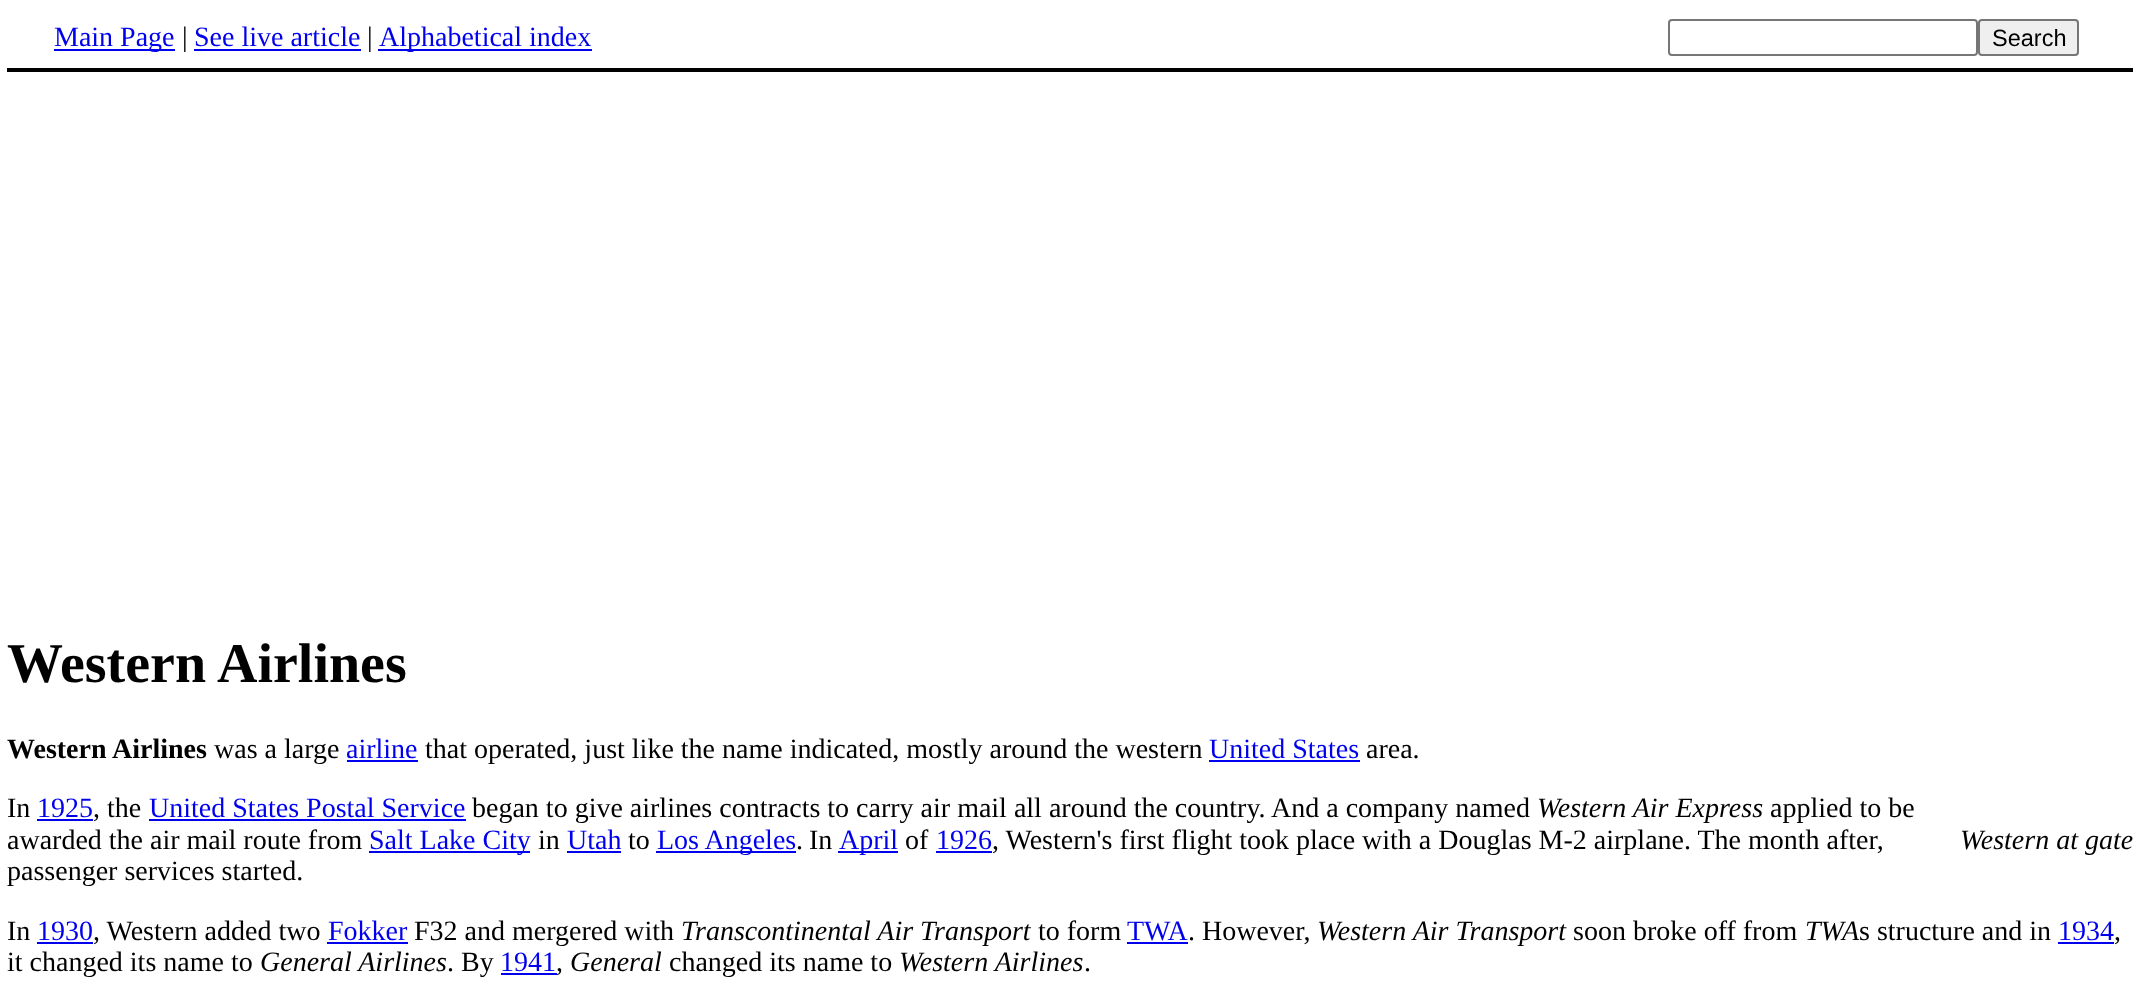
<svg xmlns="http://www.w3.org/2000/svg" width="2139" height="983" viewBox="0 0 2139 983">
  <style>
    .t1 { font: 28px Liberation Serif; fill: #00e; }
    .t2 { font: 28px Liberation Serif; fill: #000; }
    .t3 { font: 23.5px Liberation Sans; fill: #000; }
    .t4 { font: bold 56px Liberation Serif; fill: #000; }
    .t5 { font: bold 28px Liberation Serif; fill: #000; }
    .t6 { font: italic 28px Liberation Serif; fill: #000; }
  </style>
  <rect width="100%" height="100%" fill="#fff"/>
  <rect x="7" y="68" width="2126" height="4" fill="#000"/>
  <rect x="54" y="49" width="121" height="2" fill="#00e"/>
  <text x="54" y="46" class="t1">Main Page</text>
  <text x="182" y="46" class="t2">|</text>
  <text x="194" y="46" class="t1">See live article</text>
  <rect x="194" y="49" width="167" height="2" fill="#00e"/>
  <text x="367" y="46" class="t2">|</text>
  <rect x="378" y="49" width="214" height="2" fill="#00e"/>
  <text x="379" y="46" class="t1">Alphabetical index</text>
  <rect x="1669" y="20" width="308" height="35" rx="3" fill="none" stroke="#767676" stroke-width="2"/>
  <rect x="1979" y="20" width="99" height="35" rx="3" fill="#efefef" stroke="#767676" stroke-width="2"/>
  <text x="1992" y="46" class="t3">Search</text>
  <text x="7" y="682" class="t4">Western Airlines</text>
  <text x="7" y="758" class="t5">Western Airlines</text>
  <text x="214" y="758" class="t2">was a large</text>
  <text x="346" y="758" class="t1">airline</text>
  <rect x="347" y="760" width="71" height="2" fill="#00e"/>
  <text x="425" y="758" class="t2">that operated, just like the name indicated, mostly around the western</text>
  <text x="1209" y="758" class="t1">United States</text>
  <rect x="1209" y="760" width="151" height="2" fill="#00e"/>
  <text x="1366" y="758" class="t2">area.</text>
  <text x="7" y="817" class="t2">In</text>
  <text x="37" y="817" class="t1">1925</text>
  <rect x="37" y="819" width="56" height="2" fill="#00e"/>
  <text x="93" y="817" class="t2">, the</text>
  <text x="149" y="817" class="t1">United States Postal Service</text>
  <rect x="149" y="819" width="317" height="2" fill="#00e"/>
  <text x="472" y="817" class="t2">began to give airlines contracts to carry air mail all around the country. And a company named</text>
  <text x="1537" y="817" class="t6">Western Air Express</text>
  <text x="1770" y="817" class="t2">applied to be</text>
  <text x="7" y="849" class="t2">awarded the air mail route from</text>
  <rect x="369" y="851" width="161" height="2" fill="#00e"/>
  <text x="369" y="849" class="t1">Salt Lake City</text>
  <text x="538" y="849" class="t2">in</text>
  <text x="567" y="849" class="t1">Utah</text>
  <rect x="567" y="851" width="54" height="2" fill="#00e"/>
  <text x="628" y="849" class="t2">to</text>
  <rect x="656" y="851" width="140" height="2" fill="#00e"/>
  <text x="657" y="849" class="t1">Los Angeles</text>
  <text x="796" y="849" word-spacing="-1" class="t2">. In</text>
  <rect x="838" y="851" width="60" height="2" fill="#00e"/>
  <text x="839" y="849" class="t1">April</text>
  <text x="905" y="849" class="t2">of</text>
  <text x="936" y="849" class="t1">1926</text>
  <rect x="936" y="851" width="56" height="2" fill="#00e"/>
  <text x="992" y="849" class="t2">, Western's first flight took place with a Douglas M-2 airplane. The month after,</text>
  <text x="7" y="880" class="t2">passenger services started.</text>
  <text x="1960" y="849" class="t6">Western at gate</text>
  <text x="7" y="940" class="t2">In</text>
  <text x="37" y="940" class="t1">1930</text>
  <rect x="37" y="942" width="56" height="2" fill="#00e"/>
  <text x="93" y="940" class="t2">, Western added two</text>
  <text x="328" y="940" class="t1">Fokker</text>
  <rect x="327" y="942" width="81" height="2" fill="#00e"/>
  <text x="414" y="940" class="t2">F32 and mergered with</text>
  <text x="681" y="940" class="t6">Transcontinental Air Transport</text>
  <text x="1038" y="940" class="t2">to form</text>
  <text x="1127" y="940" class="t1">TWA</text>
  <rect x="1127" y="942" width="61" height="2" fill="#00e"/>
  <text x="1188" y="940" class="t2">. However,</text>
  <text x="1317" y="940" class="t6">Western Air Transport</text>
  <text x="1573" y="940" class="t2">soon broke off from</text>
  <text x="1805" y="940" class="t6">TWA</text>
  <text x="1859" y="940" class="t2">s structure and in</text>
  <text x="2058" y="940" class="t1">1934</text>
  <rect x="2058" y="942" width="56" height="2" fill="#00e"/>
  <text x="2114" y="940" class="t2">,</text>
  <text x="7" y="971" class="t2">it changed its name to</text>
  <text x="260" y="971" class="t6">General Airlines</text>
  <text x="447" y="971" class="t2">. By</text>
  <text x="500" y="971" class="t1">1941</text>
  <rect x="501" y="973" width="56" height="2" fill="#00e"/>
  <text x="556" y="971" class="t2">,</text>
  <text x="570" y="971" class="t6">General</text>
  <text x="669" y="971" class="t2">changed its name to</text>
  <text x="899" y="971" class="t6">Western Airlines</text>
  <text x="1084" y="971" class="t2">.</text>
</svg>
